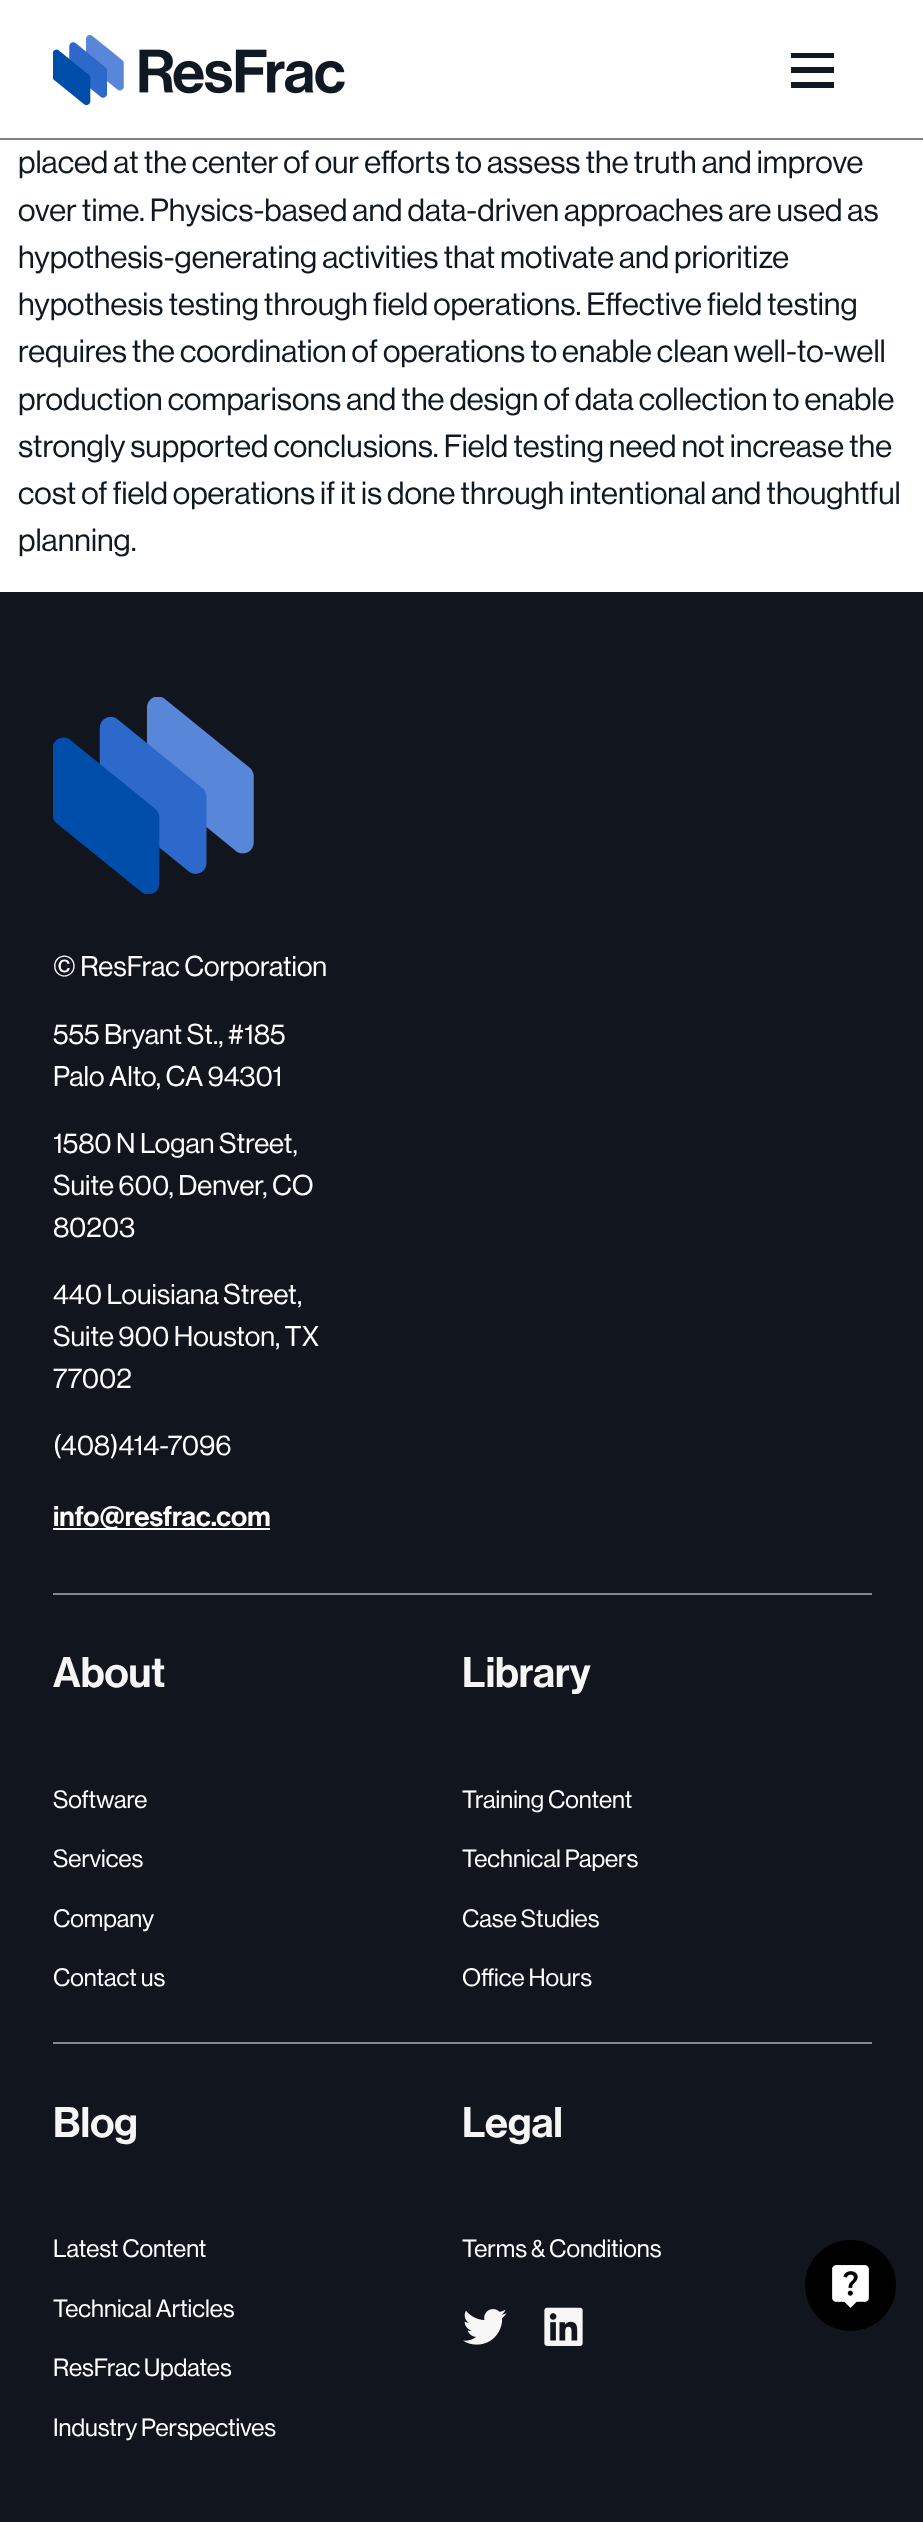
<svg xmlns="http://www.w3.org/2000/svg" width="923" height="2522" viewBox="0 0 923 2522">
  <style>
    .t1 { font: 500 31.5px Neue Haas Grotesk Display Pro; fill: #101921; }
    .t2 { font: 500 28px Neue Haas Grotesk Display Pro; fill: #fff; }
    .t3 { font: 500 28px 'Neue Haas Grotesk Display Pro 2'; fill: #fff; }
    .t4 { font: 500 42px 'Neue Haas Grotesk Display Pro 2'; fill: #f6f6f6; }
    .t5 { font: 500 24.5px Neue Haas Grotesk Display Pro; fill: #fff; }
  </style>
  <rect width="100%" height="100%" fill="#fff"/>
  <rect x="0" y="138" width="923" height="2" fill="#818181"/>
  <image x="53" y="35" width="292" height="70" href="images/1.png"/>
  <rect x="791" y="53" width="43" height="5" fill="#101921"/>
  <rect x="791" y="67" width="43" height="6" fill="#101921"/>
  <rect x="791" y="82" width="43" height="6" fill="#101921"/>
  <text x="18" y="173" class="t1">placed at the center of our efforts to assess the truth and improve</text>
  <text x="18" y="221" class="t1">over time. Physics-based and data-driven approaches are used as</text>
  <text x="18" y="268" class="t1">hypothesis-generating activities that motivate and prioritize</text>
  <text x="18" y="315" class="t1">hypothesis testing through field operations. Effective field testing</text>
  <text x="18" y="362" class="t1">requires the coordination of operations to enable clean well-to-well</text>
  <text x="18" y="410" class="t1">production comparisons and the design of data collection to enable</text>
  <text x="18" y="457" class="t1">strongly supported conclusions. Field testing need not increase the</text>
  <text x="18" y="504" class="t1">cost of field operations if it is done through intentional and thoughtful</text>
  <text x="18" y="551" class="t1">planning.</text>
  <rect x="0" y="592" width="923" height="1930" fill="#10151e"/>
  <image x="53" y="697" width="201" height="197" href="images/2.png"/>
  <text x="53" y="976" class="t2">© ResFrac Corporation</text>
  <text x="53" y="1044" class="t2">555 Bryant St., #185</text>
  <text x="53" y="1086" class="t2">Palo Alto, CA 94301</text>
  <text x="53" y="1153" class="t2">1580 N Logan Street,</text>
  <text x="53" y="1195" class="t2">Suite 600, Denver, CO</text>
  <text x="53" y="1237" class="t2">80203</text>
  <text x="53" y="1304" class="t2">440 Louisiana Street,</text>
  <text x="53" y="1346" class="t2">Suite 900 Houston, TX</text>
  <text x="53" y="1388" class="t2">77002</text>
  <text x="53" y="1455" class="t2">(408)414-7096</text>
  <rect x="53" y="1528" width="217" height="2" fill="#fff"/>
  <text x="53" y="1526" class="t3">info@resfrac.com</text>
  <rect x="53" y="1593" width="819" height="2" fill="#83868a"/>
  <text x="53" y="1687" class="t4">About</text>
  <text x="53" y="1808" class="t5">Software</text>
  <text x="53" y="1867" class="t5">Services</text>
  <text x="53" y="1927" class="t5">Company</text>
  <text x="53" y="1986" class="t5">Contact us</text>
  <text x="462" y="1687" class="t4">Library</text>
  <text x="462" y="1808" class="t5">Training Content</text>
  <text x="462" y="1867" class="t5">Technical Papers</text>
  <text x="462" y="1927" class="t5">Case Studies</text>
  <text x="462" y="1986" class="t5">Office Hours</text>
  <rect x="53" y="2042" width="819" height="2" fill="#83868a"/>
  <text x="53" y="2137" class="t4">Blog</text>
  <text x="53" y="2257" class="t5">Latest Content</text>
  <text x="53" y="2317" class="t5">Technical Articles</text>
  <text x="53" y="2376" class="t5">ResFrac Updates</text>
  <text x="53" y="2436" class="t5">Industry Perspectives</text>
  <text x="462" y="2137" class="t4">Legal</text>
  <text x="462" y="2257" class="t5">Terms &amp; Conditions</text>
  <image x="463" y="2309" width="44" height="36" href="images/3.png"/>
  <image x="544" y="2307" width="39" height="39" href="images/4.png"/>
  <circle cx="850.5" cy="2285.5" r="45.5" fill="#000"/>
  <image x="832" y="2265" width="37" height="43" href="images/5.png"/>
</svg>
